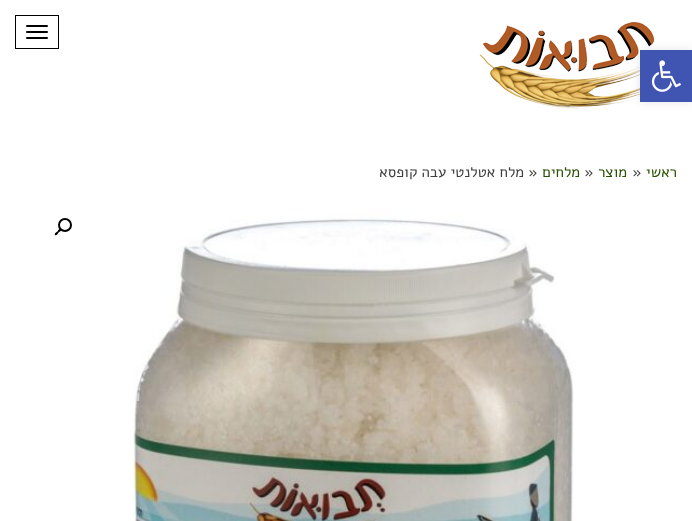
<svg xmlns="http://www.w3.org/2000/svg" width="692" height="521" viewBox="0 0 692 521">
  <style>
    .t1 { font: 15px Alef; direction: rtl; fill: #294f01; }
    .t2 { font: 15px Alef; fill: #3f3f3f; }
    .t3 { font: 15px Alef; direction: rtl; fill: #3f3f3f; }
  </style>
  <rect width="100%" height="100%" fill="#fff"/>
  <image x="479" y="21" width="176" height="89" href="images/2.png"/>
  <rect x="640" y="50" width="52" height="52" fill="#0000001a" filter="blur(5px)"/>
  <rect x="640" y="50" width="52" height="52" fill="#4054b2"/>
  <image x="651" y="60" width="30" height="32" href="images/1.png"/>
  <rect x="15.5" y="15.5" width="43" height="33" fill="none" stroke="#000"/>
  <rect x="26" y="25" width="22" height="2" rx="1" fill="#000"/>
  <rect x="26" y="31" width="22" height="2" rx="1" fill="#000"/>
  <rect x="26" y="37" width="22" height="2" rx="1" fill="#000"/>
  <text x="677" y="177" class="t1">ראשי</text>
  <text x="632" y="177" class="t2">»</text>
  <text x="627" y="177" class="t1">מוצר</text>
  <text x="584" y="177" class="t2">»</text>
  <text x="580" y="177" class="t1">מלחים</text>
  <text x="528" y="177" class="t2">»</text>
  <text x="524" y="177" class="t3">מלח אטלנטי עבה קופסא</text>
  <image x="132" y="212" width="442" height="309" href="images/3.png"/>
  <circle cx="65" cy="225" r="6" fill="none" stroke="#000" stroke-width="2"/>
  <path d="M61 229C62 230.5 59.5 232 58.5 232.5C58 233.5 56.5 236 55 235C54 233.5 56.5 232 57.5 231.5C58 230.5 59.5 228 61 229Z" fill="#000"/>
</svg>
